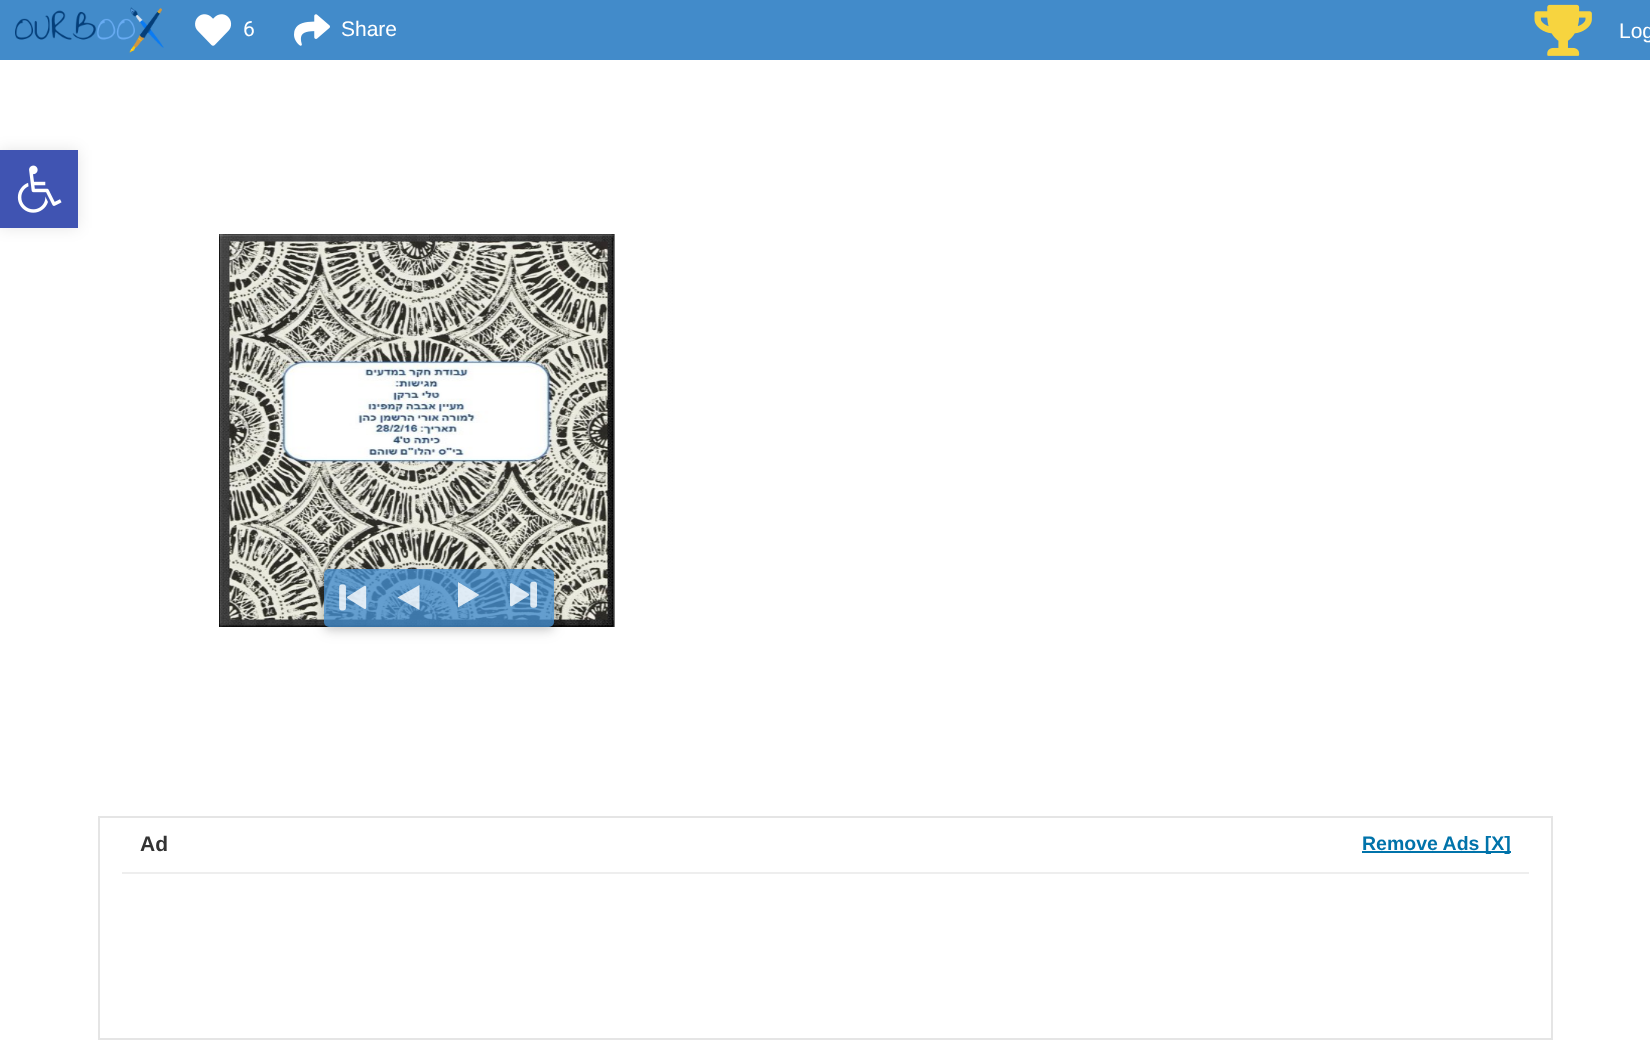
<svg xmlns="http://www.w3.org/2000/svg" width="1650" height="1054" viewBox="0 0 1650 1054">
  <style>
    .t1 { font: 21px Roboto; fill: #fff; }
    .t2 { font: 21px Liberation Sans; fill: #fff; }
    .t3 { font: bold 21px Liberation Sans; fill: #333; }
    .t4 { font: bold 19.5px Liberation Sans; fill: #0073aa; }
  </style>
  <defs>
    <clipPath id="clip1"><rect x="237" y="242" width="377" height="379"/></clipPath>
    <clipPath id="clip2"><path d="M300 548H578V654H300ZM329 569H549C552 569 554 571 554 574V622C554 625 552 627 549 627H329C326 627 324 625 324 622V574C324 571 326 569 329 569Z" clip-rule="evenodd"/></clipPath>
    <clipPath id="clip3"><path d="M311 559H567V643H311ZM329 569H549C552 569 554 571 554 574V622C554 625 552 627 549 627H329C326 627 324 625 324 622V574C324 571 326 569 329 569Z" clip-rule="evenodd"/></clipPath>
  </defs>
  <rect width="100%" height="100%" fill="#fff"/>
  <rect x="0" y="150" width="78" height="78" fill="#0000001a" filter="blur(7.5px)"/>
  <rect x="0" y="150" width="78" height="78" fill="#4054b2"/>
  <image x="17" y="165" width="45" height="48" href="images/1.png"/>
  <rect x="0" y="0" width="1650" height="60" fill="#428bca"/>
  <image x="15" y="7" width="149" height="46" href="images/2.png"/>
  <image x="195" y="14" width="37" height="32" href="images/3.png"/>
  <text x="243" y="36" class="t1">6</text>
  <image x="294" y="14" width="36" height="32" href="images/4.png"/>
  <text x="341" y="36" class="t2">Share</text>
  <image x="1534" y="4" width="58" height="52" href="images/5.png"/>
  <text x="1619" y="38" class="t2">Log</text>
  <rect x="612" y="234" width="3" height="393" fill="#7b7b7b"/>
  <image x="219" y="234" width="395" height="393" href="images/6.png"/>
  <g clip-path="url(#clip1)">
    <rect x="237" y="242" width="377" height="379" fill="#00000033" filter="blur(15px)"/>
  </g>
  <image x="219" y="234" width="395" height="393" href="images/7.png"/>
  <image x="229" y="241" width="379" height="379" href="images/8.png"/>
  <g clip-path="url(#clip2)">
    <rect x="324" y="572" width="230" height="58" rx="5" fill="#0000001a" filter="blur(7.5px)"/>
  </g>
  <g clip-path="url(#clip3)">
    <rect x="324" y="572" width="230" height="58" rx="5" fill="#00000021" filter="blur(4px)"/>
  </g>
  <rect x="324" y="569" width="230" height="58" rx="5" fill="#428bcacc"/>
  <image x="339" y="584" width="28" height="27" href="images/9.png"/>
  <path d="M419.5 610L397.5 597.5L419.5 585Z" fill="#ffffffcc"/>
  <path d="M458 582L479.5 595L458 607.5Z" fill="#ffffffcc"/>
  <image x="510" y="581" width="27" height="27" href="images/10.png"/>
  <rect x="99" y="817" width="1453" height="222" fill="none" stroke="#e5e5e5" stroke-width="2"/>
  <rect x="122" y="872" width="1407" height="2" fill="#eee"/>
  <text x="140" y="851" class="t3">Ad</text>
  <rect x="1362" y="851" width="149" height="2" fill="#0073aa"/>
  <text x="1362" y="850" class="t4">Remove Ads [X]</text>
</svg>
